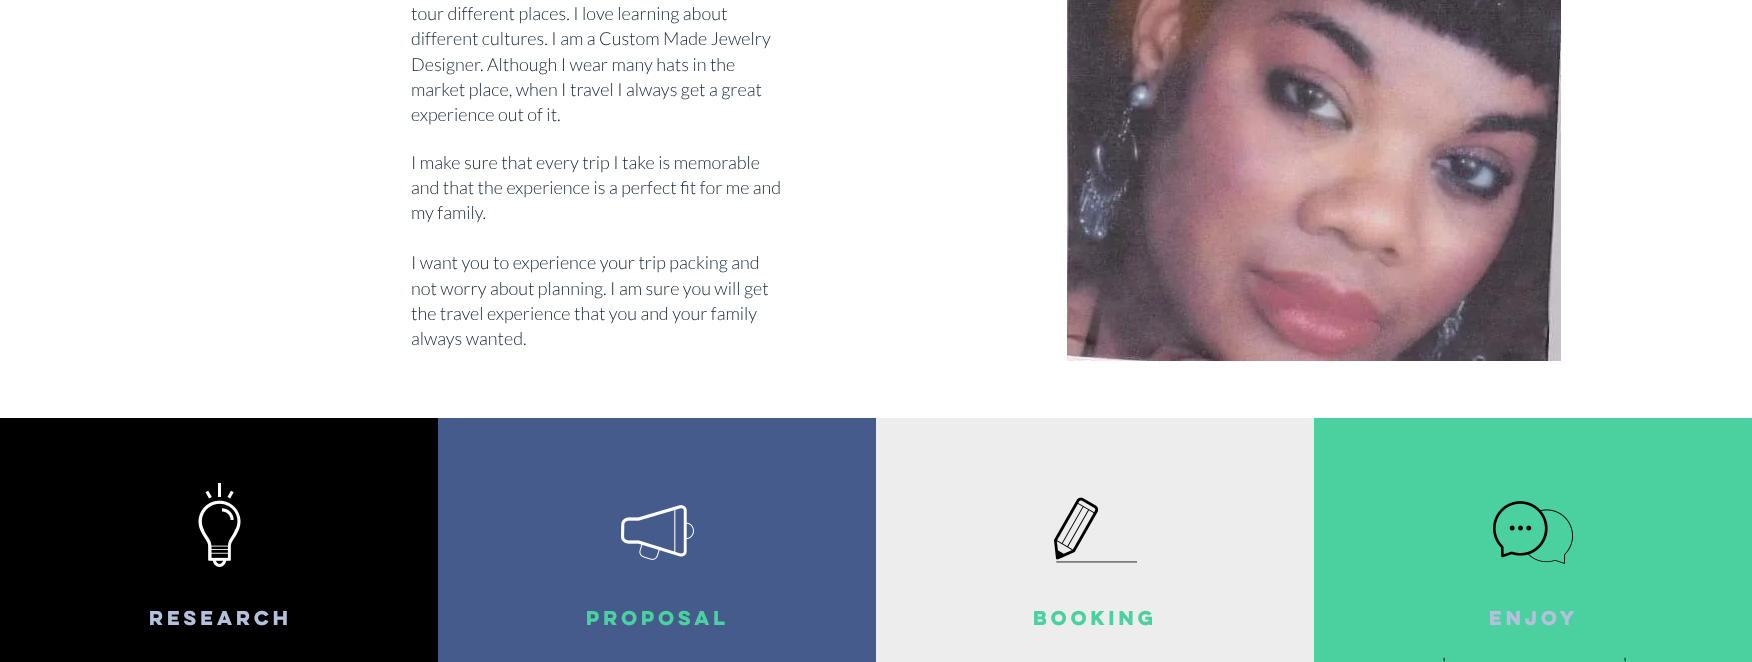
<svg xmlns="http://www.w3.org/2000/svg" width="1752" height="662" viewBox="0 0 1752 662">
  <style>
    .t1 { font: 300 18px Lato; fill: #152635; }
    .t2 { font: bold 18px 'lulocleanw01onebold'; fill: #b4c0dc; }
    .t3 { font: bold 18px 'lulocleanw01onebold'; fill: #4bd1a0; }
    .t4 { font: 300 16px 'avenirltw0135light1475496'; fill: #000; }
  </style>
  <rect width="100%" height="100%" fill="#fff"/>
  <text x="411" y="20" class="t1">tour different places. I love learning about</text>
  <text x="411" y="45" class="t1">different cultures. I am a Custom Made Jewelry</text>
  <text x="411" y="71" class="t1">Designer. Although I wear many hats in the</text>
  <text x="411" y="96" class="t1">market place, when I travel I always get a great</text>
  <text x="411" y="121" class="t1">experience out of it.</text>
  <text x="411" y="169" class="t1">I make sure that every trip I take is memorable</text>
  <text x="411" y="194" class="t1">and that the experience is a perfect fit for me and</text>
  <text x="411" y="219" class="t1">my family.</text>
  <text x="411" y="269" class="t1">I want you to experience your trip packing and</text>
  <text x="411" y="295" class="t1">not worry about planning. I am sure you will get</text>
  <text x="411" y="320" class="t1">the travel experience that you and your family</text>
  <text x="411" y="345" class="t1">always wanted.</text>
  <image x="1067" y="0" width="494" height="361" href="images/1.png"/>
  <rect x="0" y="418" width="438" height="244" fill="#000"/>
  <image x="198" y="483" width="43" height="84" href="images/2.png"/>
  <text x="149" y="625" class="t2">RESEARCH</text>
  <rect x="438" y="418" width="438" height="244" fill="#455b8c"/>
  <image x="621" y="505" width="73" height="55" href="images/3.png"/>
  <text x="586" y="625" class="t3">PROPOSAL</text>
  <rect x="876" y="418" width="438" height="244" fill="#ededed"/>
  <image x="1054" y="497" width="83" height="66" href="images/4.png"/>
  <text x="1033" y="625" class="t3">BOOKING</text>
  <rect x="1314" y="418" width="438" height="244" fill="#4bd1a0"/>
  <image x="1493" y="501" width="80" height="63" href="images/5.png"/>
  <text x="1489" y="625" class="t2">ENJOY</text>
  <text x="1442" y="669" class="t4">'</text>
  <text x="1623" y="669" class="t4">'</text>
</svg>
